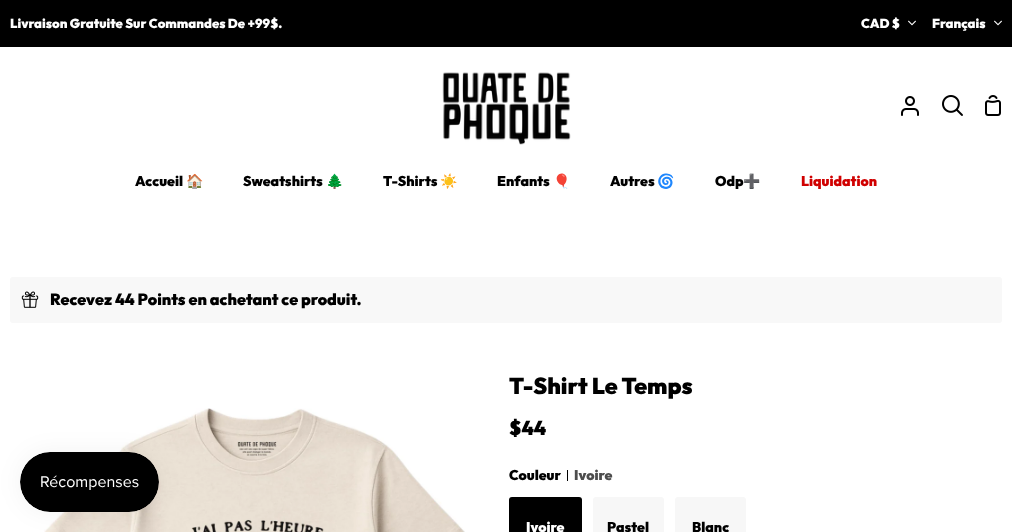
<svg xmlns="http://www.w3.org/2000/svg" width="1012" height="532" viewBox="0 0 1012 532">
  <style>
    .t1 { font: 900 13px Outfit; fill: #fff; }
    .t2 { font: 900 14px Outfit; fill: #000; }
    .t3 { font: 14px Noto Color Emoji; fill: #000; }
    .t4 { font: 900 14px Outfit; fill: #d00000; }
    .t5 { font: 900 16px Outfit; fill: #000; }
    .t6 { font: 900 23px Outfit; fill: #000; }
    .t7 { font: 900 20px Outfit; fill: #000; }
    .t8 { font: 900 14px Outfit; fill: #4d4d4d; }
    .t9 { font: 900 14px Outfit; fill: #fff; }
  </style>
  <rect width="100%" height="100%" fill="#fff"/>
  <rect x="0" y="0" width="1012" height="47" fill="#000"/>
  <text x="10" y="28" class="t1">Livraison Gratuite Sur Commandes De +99$.</text>
  <text x="861" y="28" class="t1">CAD $</text>
  <image x="908" y="20" width="8" height="6" href="images/1.png"/>
  <text x="932" y="28" class="t1">Français</text>
  <image x="994" y="20" width="8" height="6" href="images/1.png"/>
  <image x="442" y="72" width="129" height="73" href="images/2.png"/>
  <image x="901" y="96" width="18" height="20" href="images/3.png"/>
  <image x="942" y="95" width="21" height="21" href="images/4.png"/>
  <image x="985" y="95" width="16" height="21" href="images/5.png"/>
  <text x="135" y="186" class="t2">Accueil</text>
  <text x="186" y="186" class="t3">🏠</text>
  <text x="243" y="186" class="t2">Sweatshirts</text>
  <text x="326" y="186" class="t3">🌲</text>
  <text x="383" y="186" class="t2">T-Shirts</text>
  <text x="440" y="186" class="t3">☀️</text>
  <text x="497" y="186" class="t2">Enfants</text>
  <text x="553" y="186" class="t3">🎈</text>
  <text x="610" y="186" class="t2">Autres</text>
  <text x="657" y="186" class="t3">🌀</text>
  <text x="715" y="186" class="t2">Odp</text>
  <text x="743" y="186" class="t3">➕</text>
  <text x="801" y="186" class="t4">Liquidation</text>
  <rect x="10" y="277" width="992" height="46" rx="3" fill="#f8f8f8"/>
  <image x="21" y="291" width="18" height="17" href="images/6.png"/>
  <text x="50" y="305" class="t5">Recevez 44 Points en achetant ce produit.</text>
  <image x="44" y="408" width="421" height="124" href="images/7.png"/>
  <text x="509" y="394" class="t6">T-Shirt Le Temps</text>
  <text x="509" y="435" class="t7">$44</text>
  <text x="509" y="480" class="t2">Couleur</text>
  <rect x="567" y="470" width="1" height="11" fill="#000"/>
  <text x="574" y="480" class="t8">Ivoire</text>
  <rect x="509" y="497" width="73" height="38" rx="3" fill="#000"/>
  <text x="526" y="532" class="t9">Ivoire</text>
  <rect x="593" y="497" width="71" height="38" rx="3" fill="#f7f7f7"/>
  <text x="607" y="532" class="t2">Pastel</text>
  <rect x="675" y="497" width="71" height="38" rx="3" fill="#f7f7f7"/>
  <text x="692" y="532" class="t2">Blanc</text>
  <rect x="20" y="452" width="139" height="60" rx="30" fill="#0000000d" filter="blur(12.5px)"/>
  <image x="20" y="452" width="139" height="60" href="images/8.png"/>
</svg>
